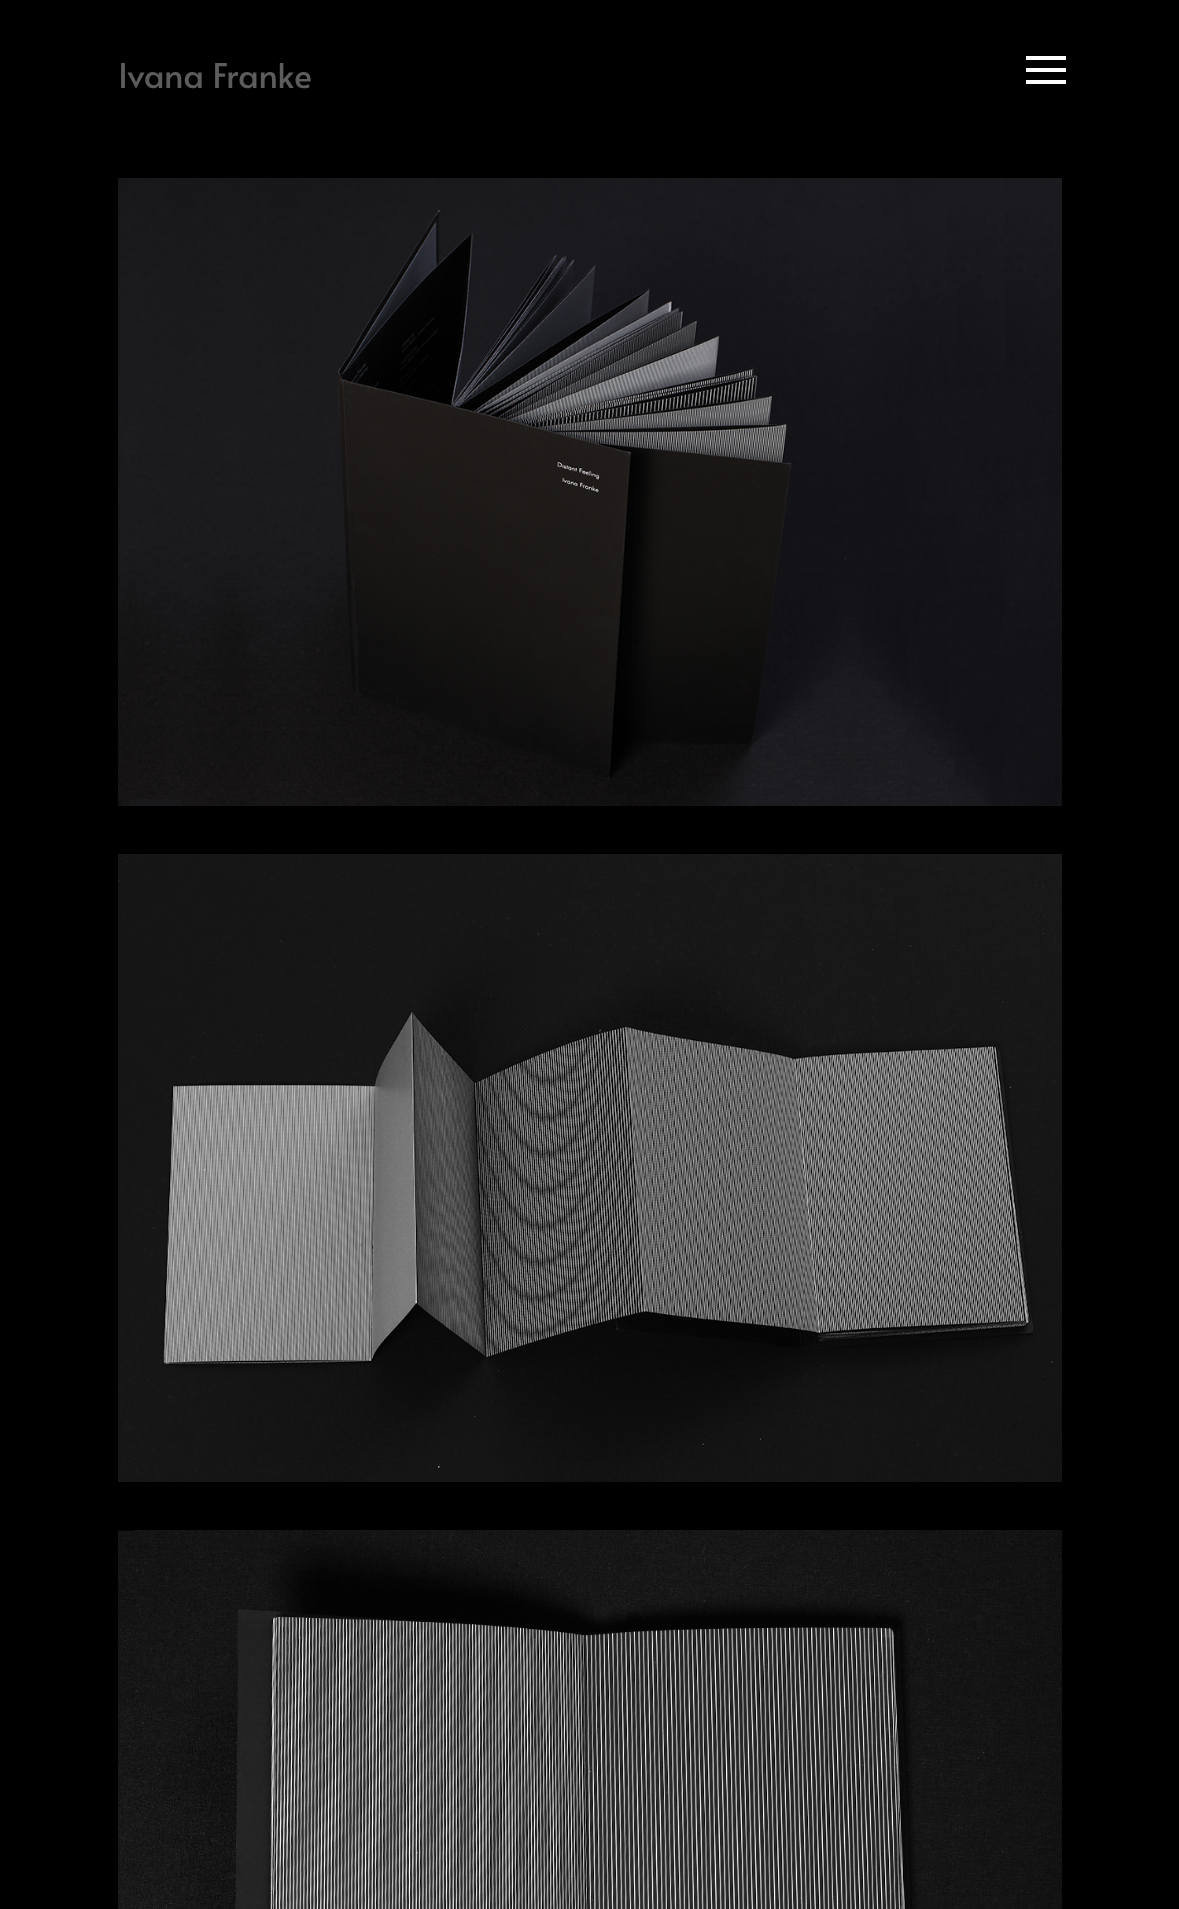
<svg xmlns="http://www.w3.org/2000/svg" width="1179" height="1909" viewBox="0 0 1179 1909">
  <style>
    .t1 { font: 34px Alata; fill: #5c5c5c; }
  </style>
  <rect width="100%" height="100%" fill="#000"/>
  <text x="118" y="88" class="t1">Ivana Franke</text>
  <rect x="1026" y="68" width="40" height="4" fill="#fff"/>
  <rect x="1026" y="56" width="40" height="4" fill="#fff"/>
  <rect x="1026" y="80" width="40" height="4" fill="#fff"/>
  <image x="118" y="178" width="944" height="628" href="images/1.png"/>
  <image x="118" y="854" width="944" height="628" href="images/2.png"/>
  <image x="118" y="1530" width="944" height="379" href="images/3.png"/>
</svg>
